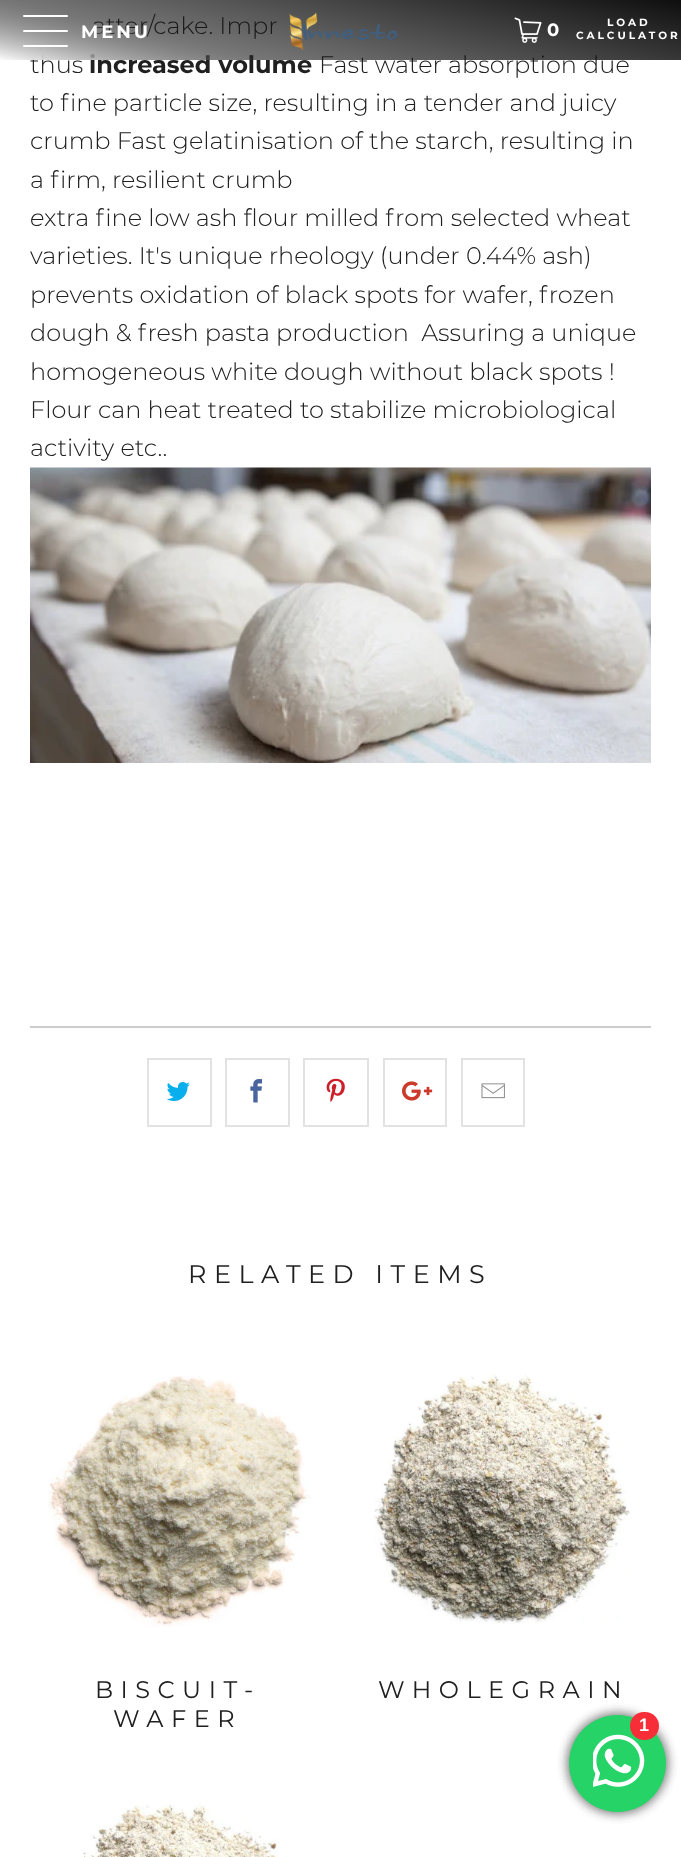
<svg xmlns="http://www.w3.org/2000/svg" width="681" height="1857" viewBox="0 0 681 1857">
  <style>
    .t1 { font: 300 24px Montserrat; fill: #202020; }
    .t2 { font: bold 24px Montserrat; fill: #202020; }
    .t3 { font: italic 300 24px Montserrat; fill: #202020; }
    .t4 { font: 100 25.5px Montserrat; letter-spacing: 7.5px; fill: #202020; }
    .t5 { font: 100 24px Montserrat; letter-spacing: 7.5px; fill: #202020; }
    .t6 { font: bold 18px Montserrat; letter-spacing: 3px; fill: #fff; }
    .t7 { font: bold 18px Montserrat; letter-spacing: 2px; fill: #fff; }
    .t8 { font: bold 10.5px Montserrat; letter-spacing: 3px; fill: #fff; }
    .t9 { font: bold 18px Liberation Sans; fill: #fff; }
  </style>
  <defs>
    <linearGradient id="g1" gradientUnits="userSpaceOnUse" x1="364" y1="-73" x2="317" y2="133"><stop offset="0" stop-color="#0e0e0e"/><stop offset="0.7" stop-color="#161617" stop-opacity="0.6"/><stop offset="1" stop-color="#fefefe"/></linearGradient>
  </defs>
  <rect width="100%" height="100%" fill="#fff"/>
  <text x="92" y="34" class="t1">atter/cake. Impr</text>
  <text x="30" y="73" class="t1">thus</text>
  <text x="89" y="73" class="t2">increased volume</text>
  <text x="319" y="73" class="t1">Fast water absorption due</text>
  <text x="30" y="111" class="t1">to fine particle size, resulting in a tender and juicy</text>
  <text x="30" y="149" class="t1">crumb Fast gelatinisation of the starch, resulting in</text>
  <text x="30" y="188" class="t1">a firm, resilient crumb</text>
  <text x="30" y="226" class="t3">e</text>
  <text x="44" y="226" class="t1">xtra fine low ash flour milled from selected wheat</text>
  <text x="30" y="264" class="t1">varieties. It's unique rheology (under 0.44% ash)</text>
  <text x="30" y="303" class="t1">prevents oxidation of black spots for wafer, frozen</text>
  <text x="30" y="341" class="t1" xml:space="preserve">dough &amp; fresh pasta production  Assuring a unique</text>
  <text x="30" y="380" class="t1">homogeneous white dough without black spots !</text>
  <text x="30" y="418" class="t1">Flour can heat treated to stabilize microbiological</text>
  <text x="30" y="456" class="t1">activity etc..</text>
  <image x="30" y="467" width="621" height="296" href="images/1.png"/>
  <rect x="30" y="1026" width="621" height="2" fill="#ccc"/>
  <rect x="148" y="1059" width="63" height="67" fill="none" stroke="#e2e2e2" stroke-width="2"/>
  <image x="166" y="1082" width="24" height="19" href="images/2.png"/>
  <rect x="226" y="1059" width="63" height="67" fill="none" stroke="#e2e2e2" stroke-width="2"/>
  <image x="250" y="1079" width="13" height="24" href="images/3.png"/>
  <rect x="304" y="1059" width="64" height="67" fill="none" stroke="#e2e2e2" stroke-width="2"/>
  <image x="326" y="1078" width="19" height="24" href="images/4.png"/>
  <rect x="384" y="1059" width="62" height="67" fill="none" stroke="#e2e2e2" stroke-width="2"/>
  <image x="402" y="1081" width="31" height="20" href="images/5.png"/>
  <rect x="462" y="1059" width="62" height="67" fill="none" stroke="#e2e2e2" stroke-width="2"/>
  <image x="481" y="1083" width="24" height="16" href="images/6.png"/>
  <text x="188" y="1283" class="t4">RELATED ITEMS</text>
  <image x="48" y="1375" width="263" height="252" href="images/7.png"/>
  <text x="95" y="1698" class="t5">BISCUIT-</text>
  <text x="113" y="1727" class="t5">WAFER</text>
  <image x="373" y="1373" width="258" height="251" href="images/8.png"/>
  <text x="378" y="1698" class="t5">WHOLEGRAIN</text>
  <image x="83" y="1802" width="195" height="55" href="images/9.png"/>
  <rect x="0" y="0" width="681" height="60" fill="url(#g1)"/>
  <rect x="23" y="15" width="45" height="2" rx="1" fill="#fff"/>
  <rect x="23" y="30" width="45" height="2" rx="1" fill="#fff"/>
  <rect x="23" y="45" width="45" height="2" rx="1" fill="#fff"/>
  <text x="81" y="38" class="t6">MENU</text>
  <image x="289" y="12" width="109" height="39" href="images/10.png"/>
  <image x="514" y="17" width="28" height="26" href="images/11.png"/>
  <text x="547" y="36" class="t7">0</text>
  <text x="607" y="26" class="t8">LOAD</text>
  <text x="576" y="39" class="t8">CALCULATOR</text>
  <rect x="569" y="1715" width="97" height="97" rx="48.5" fill="#00000033" filter="blur(6px)"/>
  <rect x="569" y="1715" width="97" height="97" rx="48.5" fill="#00000033" filter="blur(6px)"/>
  <rect x="569" y="1715" width="97" height="97" rx="48.5" fill="#00000033" filter="blur(6px)"/>
  <rect x="569" y="1715" width="97" height="97" rx="48.5" fill="#00000033" filter="blur(6px)"/>
  <circle cx="617.5" cy="1763.5" r="48.5" fill="#25d366"/>
  <image x="593" y="1734" width="52" height="53" href="images/12.png"/>
  <rect x="630" y="1712" width="29" height="28" rx="14" fill="#f72e38"/>
  <text x="639" y="1731" class="t9">1</text>
</svg>
